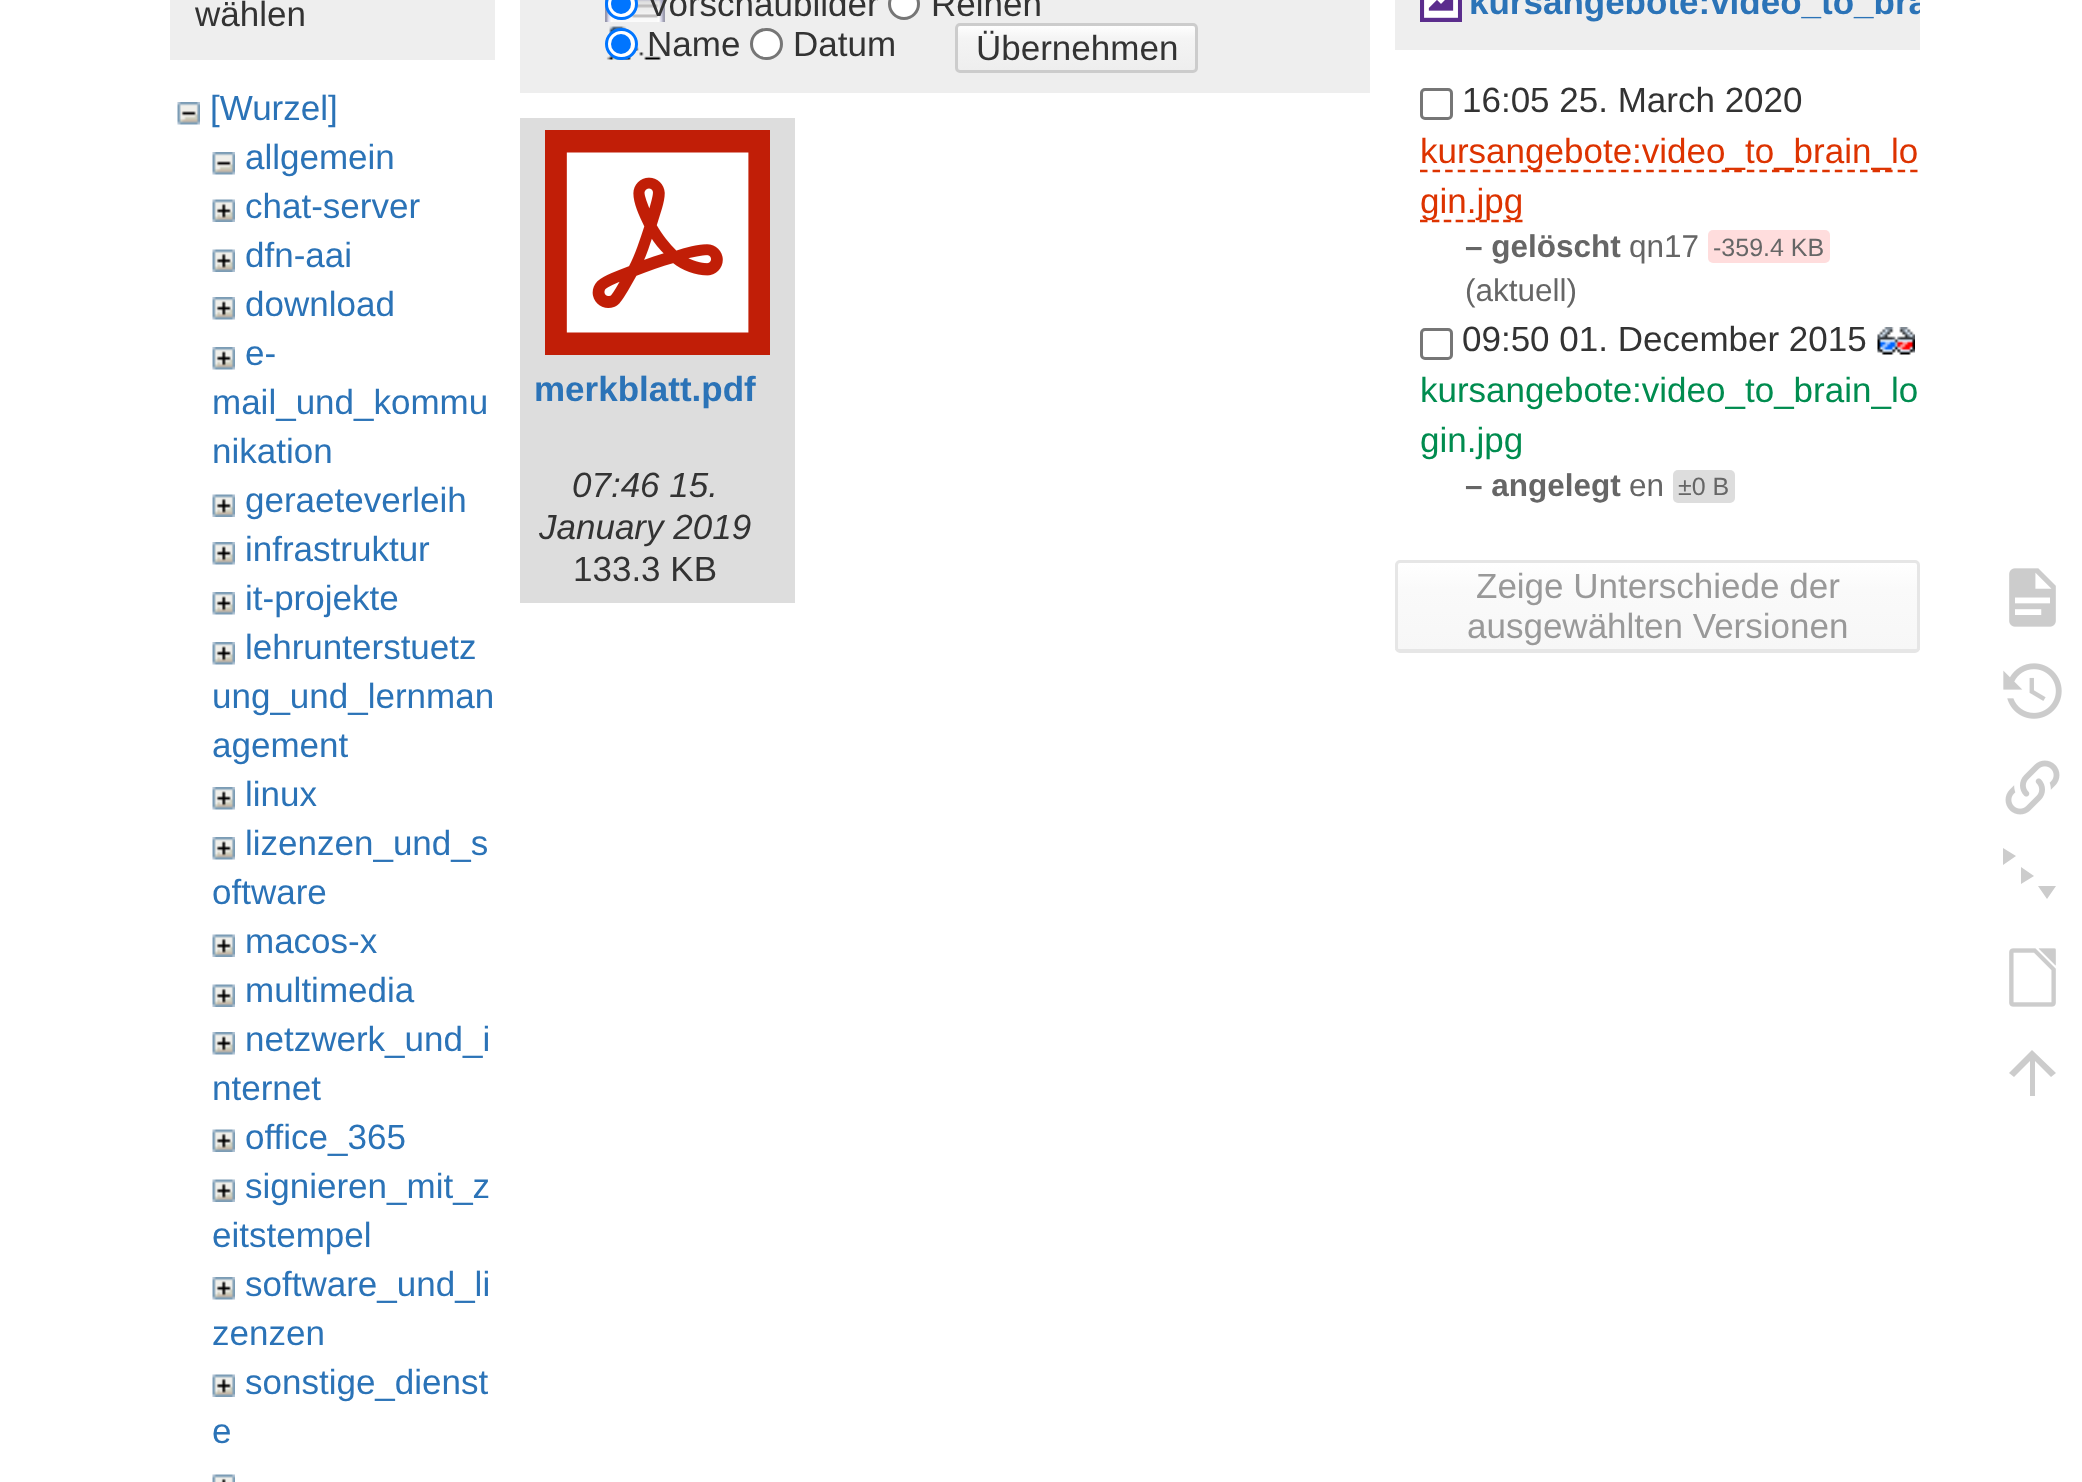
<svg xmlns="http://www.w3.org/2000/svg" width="2082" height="1482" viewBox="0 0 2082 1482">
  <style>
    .t1 { font: 35px Liberation Sans; fill: #333; }
    .t2 { font: 35px Liberation Sans; fill: #2b73b7; }
    .t3 { font: bold 35px Liberation Sans; fill: #2b73b7; }
    .t4 { font: italic 35px Liberation Sans; fill: #333; }
    .t5 { font: 35px Liberation Sans; fill: #d30; }
    .t6 { font: bold 31.5px Liberation Sans; fill: #666; }
    .t7 { font: 31.5px Liberation Sans; fill: #666; }
    .t8 { font: 25px Liberation Sans; fill: #666; }
    .t9 { font: 35px Liberation Sans; fill: #008c4f; }
    .t10 { font: 35px Liberation Sans; fill: #999; }
  </style>
  <defs>
    <clipPath id="clip1"><rect x="955" y="23" width="243" height="50" rx="5"/></clipPath>
    <linearGradient id="g1" gradientUnits="userSpaceOnUse" x1="1076" y1="25" x2="1076" y2="70"><stop offset="0" stop-color="#fff"/><stop offset="0.3" stop-color="#f4f4f4"/><stop offset="0.99" stop-color="#eee"/><stop offset="0.99" stop-color="#ccc"/></linearGradient>
    <clipPath id="clip2"><rect x="1395" y="0" width="525" height="50"/></clipPath>
    <clipPath id="clip3"><rect x="1395" y="560" width="525" height="93" rx="5"/></clipPath>
    <linearGradient id="g2" gradientUnits="userSpaceOnUse" x1="1658" y1="563" x2="1658" y2="650"><stop offset="0" stop-color="#fff"/><stop offset="0.3" stop-color="#fafafa"/><stop offset="0.99" stop-color="#f7f7f7"/><stop offset="0.99" stop-color="#e6e6e6"/></linearGradient>
  </defs>
  <rect width="100%" height="100%" fill="#fff"/>
  <rect x="170" y="0" width="325" height="60" fill="#eee"/>
  <text x="195" y="26" class="t1">wählen</text>
  <image x="177" y="102" width="23" height="23" href="images/1.png"/>
  <text x="210" y="120" class="t2">[Wurzel]</text>
  <image x="212" y="152" width="23" height="23" href="images/1.png"/>
  <text x="245" y="169" class="t2">allgemein</text>
  <image x="212" y="199" width="23" height="23" href="images/2.png"/>
  <text x="245" y="218" class="t2">chat-server</text>
  <image x="212" y="249" width="23" height="23" href="images/3.png"/>
  <text x="245" y="267" class="t2">dfn-aai</text>
  <image x="212" y="297" width="23" height="23" href="images/4.png"/>
  <text x="245" y="316" class="t2">download</text>
  <image x="212" y="347" width="23" height="23" href="images/5.png"/>
  <text x="245" y="365" class="t2">e-</text>
  <text x="212" y="414" class="t2">mail_und_kommu</text>
  <text x="212" y="463" class="t2">nikation</text>
  <image x="212" y="494" width="23" height="23" href="images/3.png"/>
  <text x="245" y="512" class="t2">geraeteverleih</text>
  <image x="212" y="542" width="23" height="23" href="images/4.png"/>
  <text x="245" y="561" class="t2">infrastruktur</text>
  <image x="212" y="592" width="23" height="23" href="images/4.png"/>
  <text x="245" y="610" class="t2">it-projekte</text>
  <image x="212" y="642" width="23" height="23" href="images/4.png"/>
  <text x="245" y="659" class="t2">lehrunterstuetz</text>
  <text x="212" y="708" class="t2">ung_und_lernman</text>
  <text x="212" y="757" class="t2">agement</text>
  <image x="212" y="787" width="23" height="23" href="images/4.png"/>
  <text x="245" y="806" class="t2">linux</text>
  <image x="212" y="837" width="23" height="23" href="images/4.png"/>
  <text x="245" y="855" class="t2">lizenzen_und_s</text>
  <text x="212" y="904" class="t2">oftware</text>
  <image x="212" y="934" width="23" height="23" href="images/3.png"/>
  <text x="245" y="953" class="t2">macos-x</text>
  <image x="212" y="984" width="23" height="23" href="images/3.png"/>
  <text x="245" y="1002" class="t2">multimedia</text>
  <image x="212" y="1032" width="23" height="23" href="images/5.png"/>
  <text x="245" y="1051" class="t2">netzwerk_und_i</text>
  <text x="212" y="1100" class="t2">nternet</text>
  <image x="212" y="1129" width="23" height="23" href="images/3.png"/>
  <text x="245" y="1149" class="t2">office_365</text>
  <image x="212" y="1179" width="23" height="23" href="images/3.png"/>
  <text x="245" y="1198" class="t2">signieren_mit_z</text>
  <text x="212" y="1247" class="t2">eitstempel</text>
  <image x="212" y="1277" width="23" height="23" href="images/4.png"/>
  <text x="245" y="1296" class="t2">software_und_li</text>
  <text x="212" y="1345" class="t2">zenzen</text>
  <image x="212" y="1374" width="23" height="23" href="images/3.png"/>
  <text x="245" y="1394" class="t2">sonstige_dienst</text>
  <text x="212" y="1443" class="t2">e</text>
  <image x="212" y="1474" width="23" height="8" href="images/6.png"/>
  <rect x="520" y="0" width="850" height="93" fill="#eee"/>
  <image x="605" y="0" width="60" height="22" href="images/7.png"/>
  <rect x="606.5" y="-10.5" width="30" height="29" rx="14.5" fill="#fff" stroke="#0075ff" stroke-width="3"/>
  <circle cx="621" cy="4" r="10" fill="#0075ff"/>
  <text x="647" y="16" class="t1">Vorschaubilder</text>
  <circle cx="904" cy="4" r="14.5" fill="#fff" stroke="#767676" stroke-width="3"/>
  <text x="931" y="16" class="t1">Reihen</text>
  <image x="606" y="26" width="55" height="34" href="images/8.png"/>
  <rect x="606.5" y="29.5" width="30" height="29" rx="14.5" fill="#fff" stroke="#0075ff" stroke-width="3"/>
  <circle cx="621" cy="44" r="10" fill="#0075ff"/>
  <text x="647" y="56" class="t1">Name</text>
  <rect x="751.5" y="29.5" width="30" height="29" rx="14.5" fill="#fff" stroke="#767676" stroke-width="3"/>
  <text x="793" y="56" class="t1">Datum</text>
  <g clip-path="url(#clip1)">
    <rect x="955" y="25" width="243" height="45" fill="url(#g1)"/>
  </g>
  <rect x="956.5" y="24.5" width="240" height="47" rx="3.5" fill="none" stroke="#ccc" stroke-width="3"/>
  <text x="976" y="60" class="t1">Übernehmen</text>
  <rect x="520" y="118" width="275" height="485" fill="#ddd"/>
  <image x="545" y="130" width="225" height="225" href="images/9.png"/>
  <text x="534" y="401" class="t3">merkblatt.pdf</text>
  <text x="572" y="497" class="t4">07:46 15.</text>
  <text x="539" y="539" class="t4">January 2019</text>
  <text x="573" y="581" class="t1">133.3 KB</text>
  <rect x="1395" y="0" width="525" height="50" fill="#eee"/>
  <image x="1420" y="0" width="42" height="22" href="images/10.png"/>
  <g clip-path="url(#clip2)">
    <text x="1469" y="14" class="t3">kursangebote:video_to_bra</text>
  </g>
  <rect x="1421.5" y="89.5" width="30" height="29" rx="3.5" fill="none" stroke="#767676" stroke-width="3"/>
  <text x="1462" y="112" class="t1">16:05 25. March 2020</text>
  <path d="M1420 171H1917.5" fill="none" stroke="#d30" stroke-width="2.5" stroke-dasharray="7.5 5.07"/>
  <text x="1420" y="163" class="t5">kursangebote:video_to_brain_lo</text>
  <path d="M1420 221H1522.5" fill="none" stroke="#d30" stroke-width="2.5" stroke-dasharray="7.5 4.38"/>
  <text x="1420" y="213" class="t5">gin.jpg</text>
  <text x="1465" y="257" class="t6">– gelöscht</text>
  <text x="1629" y="257" class="t7">qn17</text>
  <rect x="1708" y="230" width="122" height="33" rx="5" fill="#fdd"/>
  <text x="1713" y="256" class="t8">-359.4 KB</text>
  <text x="1465" y="301" class="t7">(aktuell)</text>
  <rect x="1421.5" y="329.5" width="30" height="29" rx="3.5" fill="none" stroke="#767676" stroke-width="3"/>
  <text x="1462" y="351" class="t1">09:50 01. December 2015</text>
  <image x="1877" y="327" width="38" height="28" href="images/11.png"/>
  <text x="1420" y="402" class="t9">kursangebote:video_to_brain_lo</text>
  <text x="1420" y="452" class="t9">gin.jpg</text>
  <text x="1465" y="496" class="t6">– angelegt</text>
  <text x="1629" y="496" class="t7">en</text>
  <rect x="1673" y="470" width="62" height="33" rx="5" fill="#ddd"/>
  <text x="1678" y="495" class="t8">±0 B</text>
  <g clip-path="url(#clip3)">
    <rect x="1395" y="563" width="525" height="87" fill="url(#g2)"/>
  </g>
  <rect x="1396.5" y="561.5" width="522" height="90" rx="3.5" fill="none" stroke="#e6e6e6" stroke-width="3"/>
  <text x="1476" y="598" class="t10">Zeige Unterschiede der</text>
  <text x="1467" y="638" class="t10">ausgewählten Versionen</text>
  <image x="2009" y="568" width="47" height="59" href="images/12.png"/>
  <image x="2003" y="663" width="59" height="56" href="images/13.png"/>
  <image x="2005" y="760" width="55" height="55" href="images/14.png"/>
  <path d="M2003 848L2016 856L2003 865ZM2021 867L2034 876L2021 884ZM2038 886H2056L2047 899Z" fill="#ccc"/>
  <image x="2009" y="948" width="47" height="59" href="images/15.png"/>
  <path d="M2035 1096H2030V1061L2014 1077L2009 1073L2032 1050L2056 1073L2051 1077L2035 1061Z" fill="#ccc"/>
</svg>
